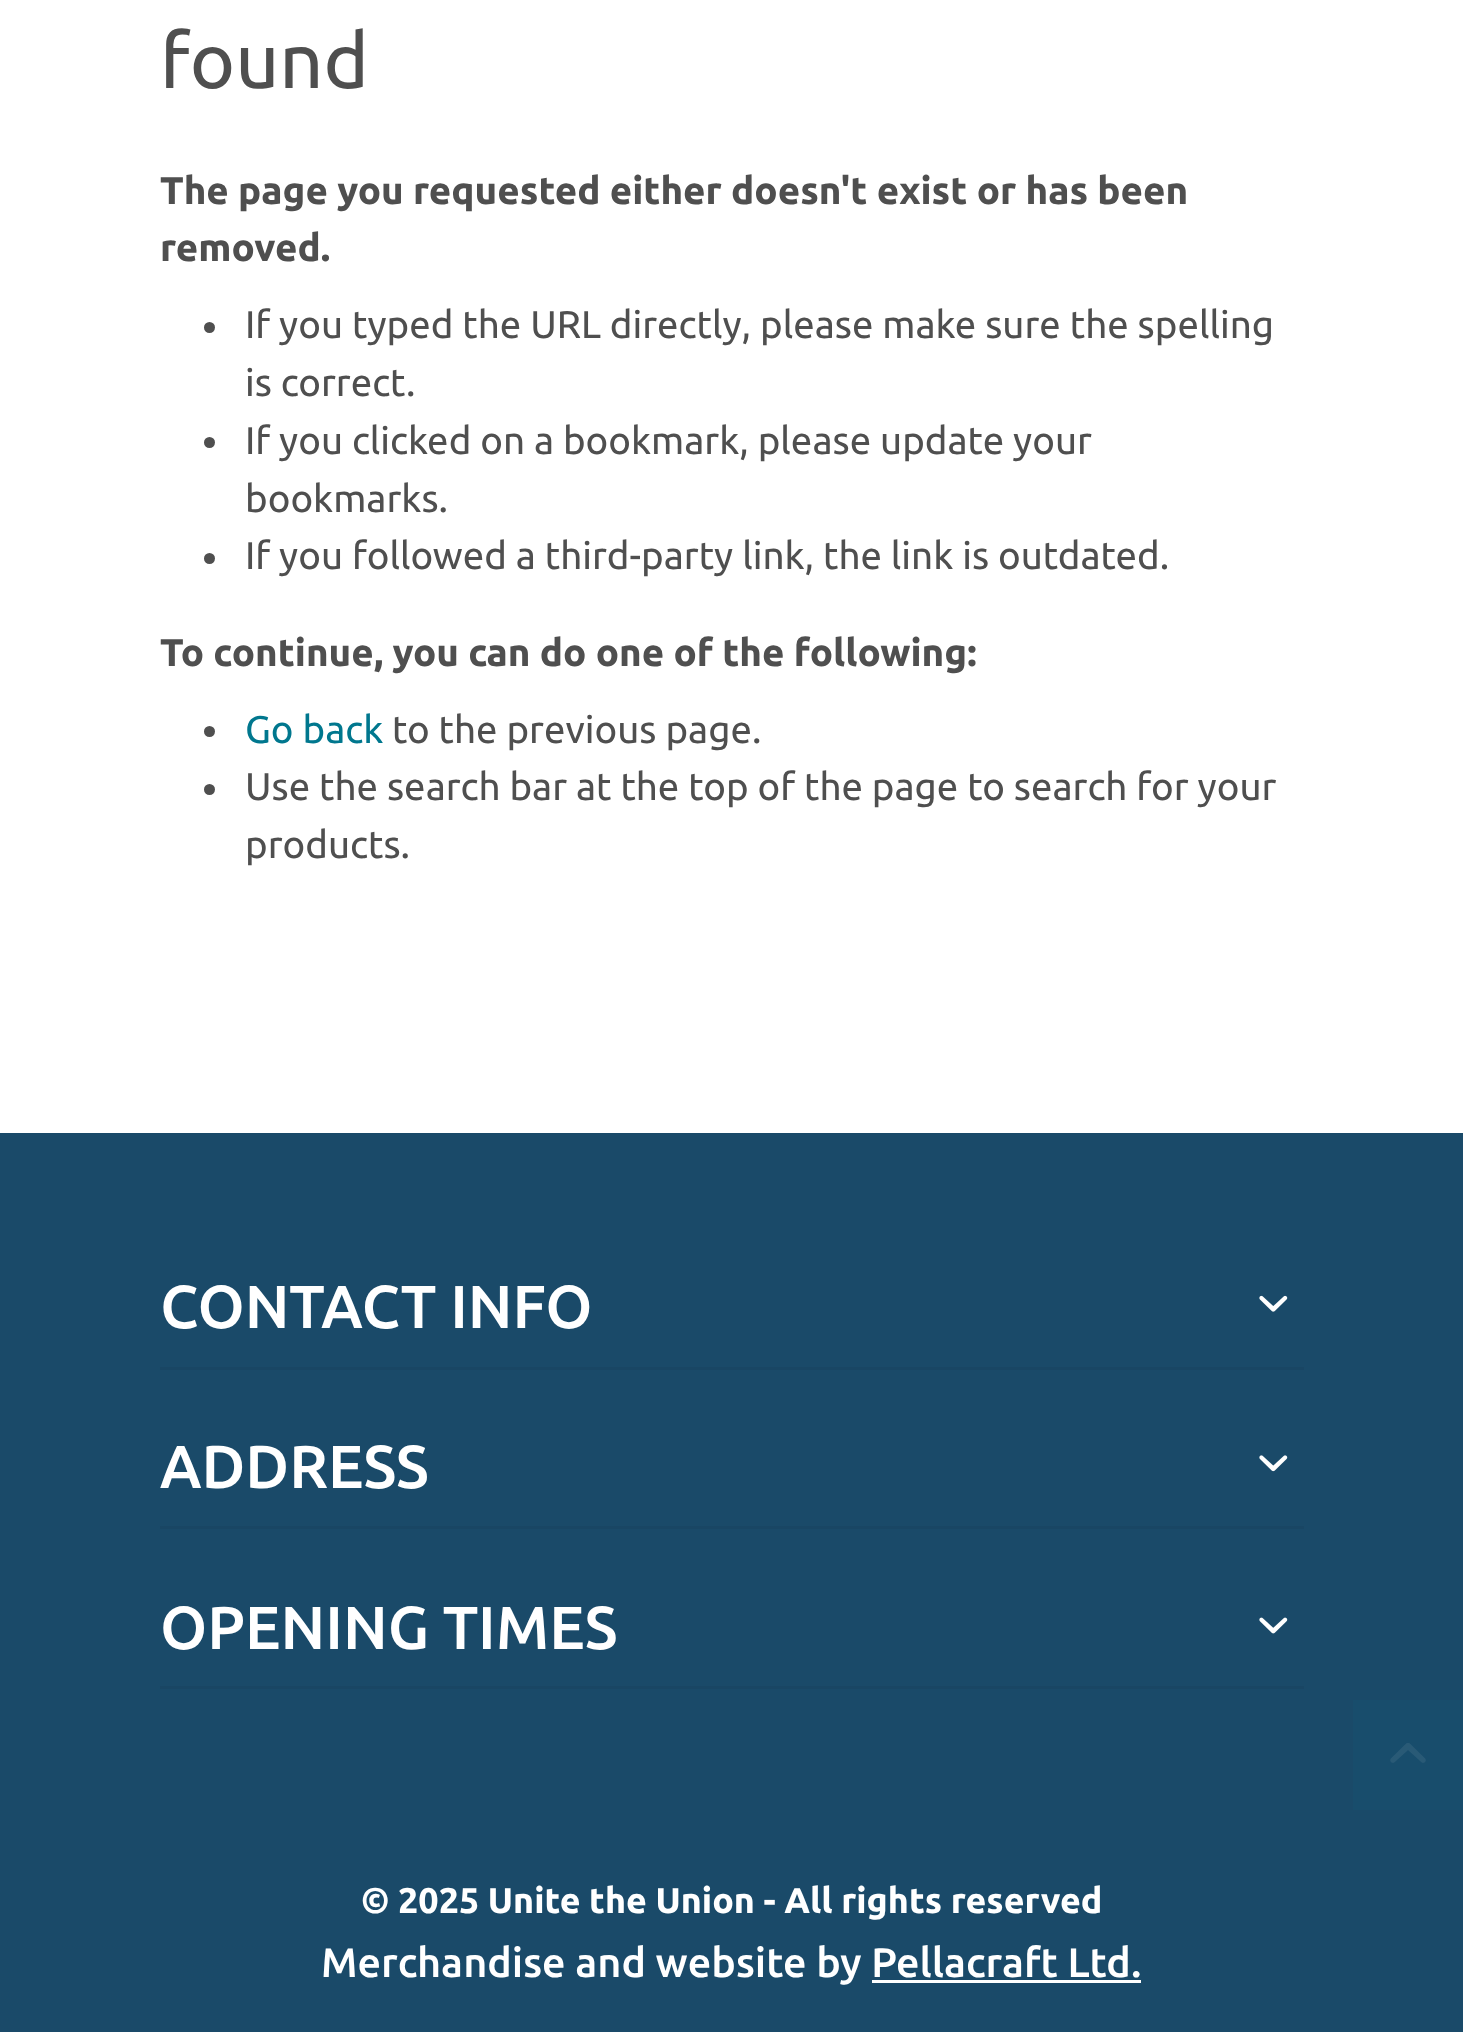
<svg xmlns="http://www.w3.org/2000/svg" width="1463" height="2032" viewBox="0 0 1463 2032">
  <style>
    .t1 { font: 77px Ubuntu; fill: #4f4f4f; }
    .t2 { font: bold 38.5px Ubuntu; fill: #4f4f4f; }
    .t3 { font: 38.5px Ubuntu; fill: #4f4f4f; }
    .t4 { font: 38.5px Ubuntu; fill: #00778e; }
    .t5 { font: 500 60.5px Ubuntu; fill: #fff; }
    .t6 { font: bold 35.75px Ubuntu; fill: #fff; }
    .t7 { font: 500 41.25px Ubuntu; fill: #fff; }
  </style>
  <rect width="100%" height="100%" fill="#fff"/>
  <text x="160" y="88" class="t1">found</text>
  <text x="160" y="204" class="t2">The page you requested either doesn't exist or has been</text>
  <text x="160" y="261" class="t2">removed.</text>
  <circle cx="209.5" cy="327.5" r="5.5" fill="#4f4f4f"/>
  <text x="245" y="338" class="t3">If you typed the URL directly, please make sure the spelling</text>
  <text x="245" y="396" class="t3">is correct.</text>
  <circle cx="209.5" cy="442.5" r="5.5" fill="#4f4f4f"/>
  <text x="245" y="454" class="t3">If you clicked on a bookmark, please update your</text>
  <text x="245" y="512" class="t3">bookmarks.</text>
  <circle cx="209.5" cy="558.5" r="5.5" fill="#4f4f4f"/>
  <text x="245" y="569" class="t3">If you followed a third-party link, the link is outdated.</text>
  <text x="160" y="666" class="t2">To continue, you can do one of the following:</text>
  <circle cx="209.5" cy="731.5" r="5.5" fill="#4f4f4f"/>
  <text x="245" y="743" class="t4">Go back</text>
  <text x="392" y="743" class="t3">to the previous page.</text>
  <circle cx="209.5" cy="789.5" r="5.5" fill="#4f4f4f"/>
  <text x="245" y="800" class="t3">Use the search bar at the top of the page to search for your</text>
  <text x="245" y="858" class="t3">products.</text>
  <rect x="0" y="1133" width="1463" height="899" fill="#1a4a69"/>
  <rect x="160" y="1367" width="1144" height="3" fill="#194664"/>
  <text x="160" y="1328" class="t5">CONTACT INFO</text>
  <image x="1259" y="1295" width="29" height="17" href="images/1.png"/>
  <rect x="160" y="1526" width="1144" height="3" fill="#194664"/>
  <text x="160" y="1488" class="t5">ADDRESS</text>
  <image x="1259" y="1455" width="29" height="17" href="images/2.png"/>
  <rect x="160" y="1686" width="1144" height="3" fill="#194664"/>
  <text x="160" y="1649" class="t5">OPENING TIMES</text>
  <image x="1259" y="1617" width="29" height="17" href="images/3.png"/>
  <rect x="1353" y="1700" width="110" height="110" fill="#184d6c"/>
  <image x="1390" y="1743" width="36" height="20" href="images/4.png"/>
  <text x="361" y="1913" class="t6">© 2025 Unite the Union - All rights reserved</text>
  <text x="321" y="1977" class="t7">Merchandise and website by Pellacraft Ltd.</text>
  <rect x="872" y="1980" width="269" height="3" fill="#fff"/>
</svg>
